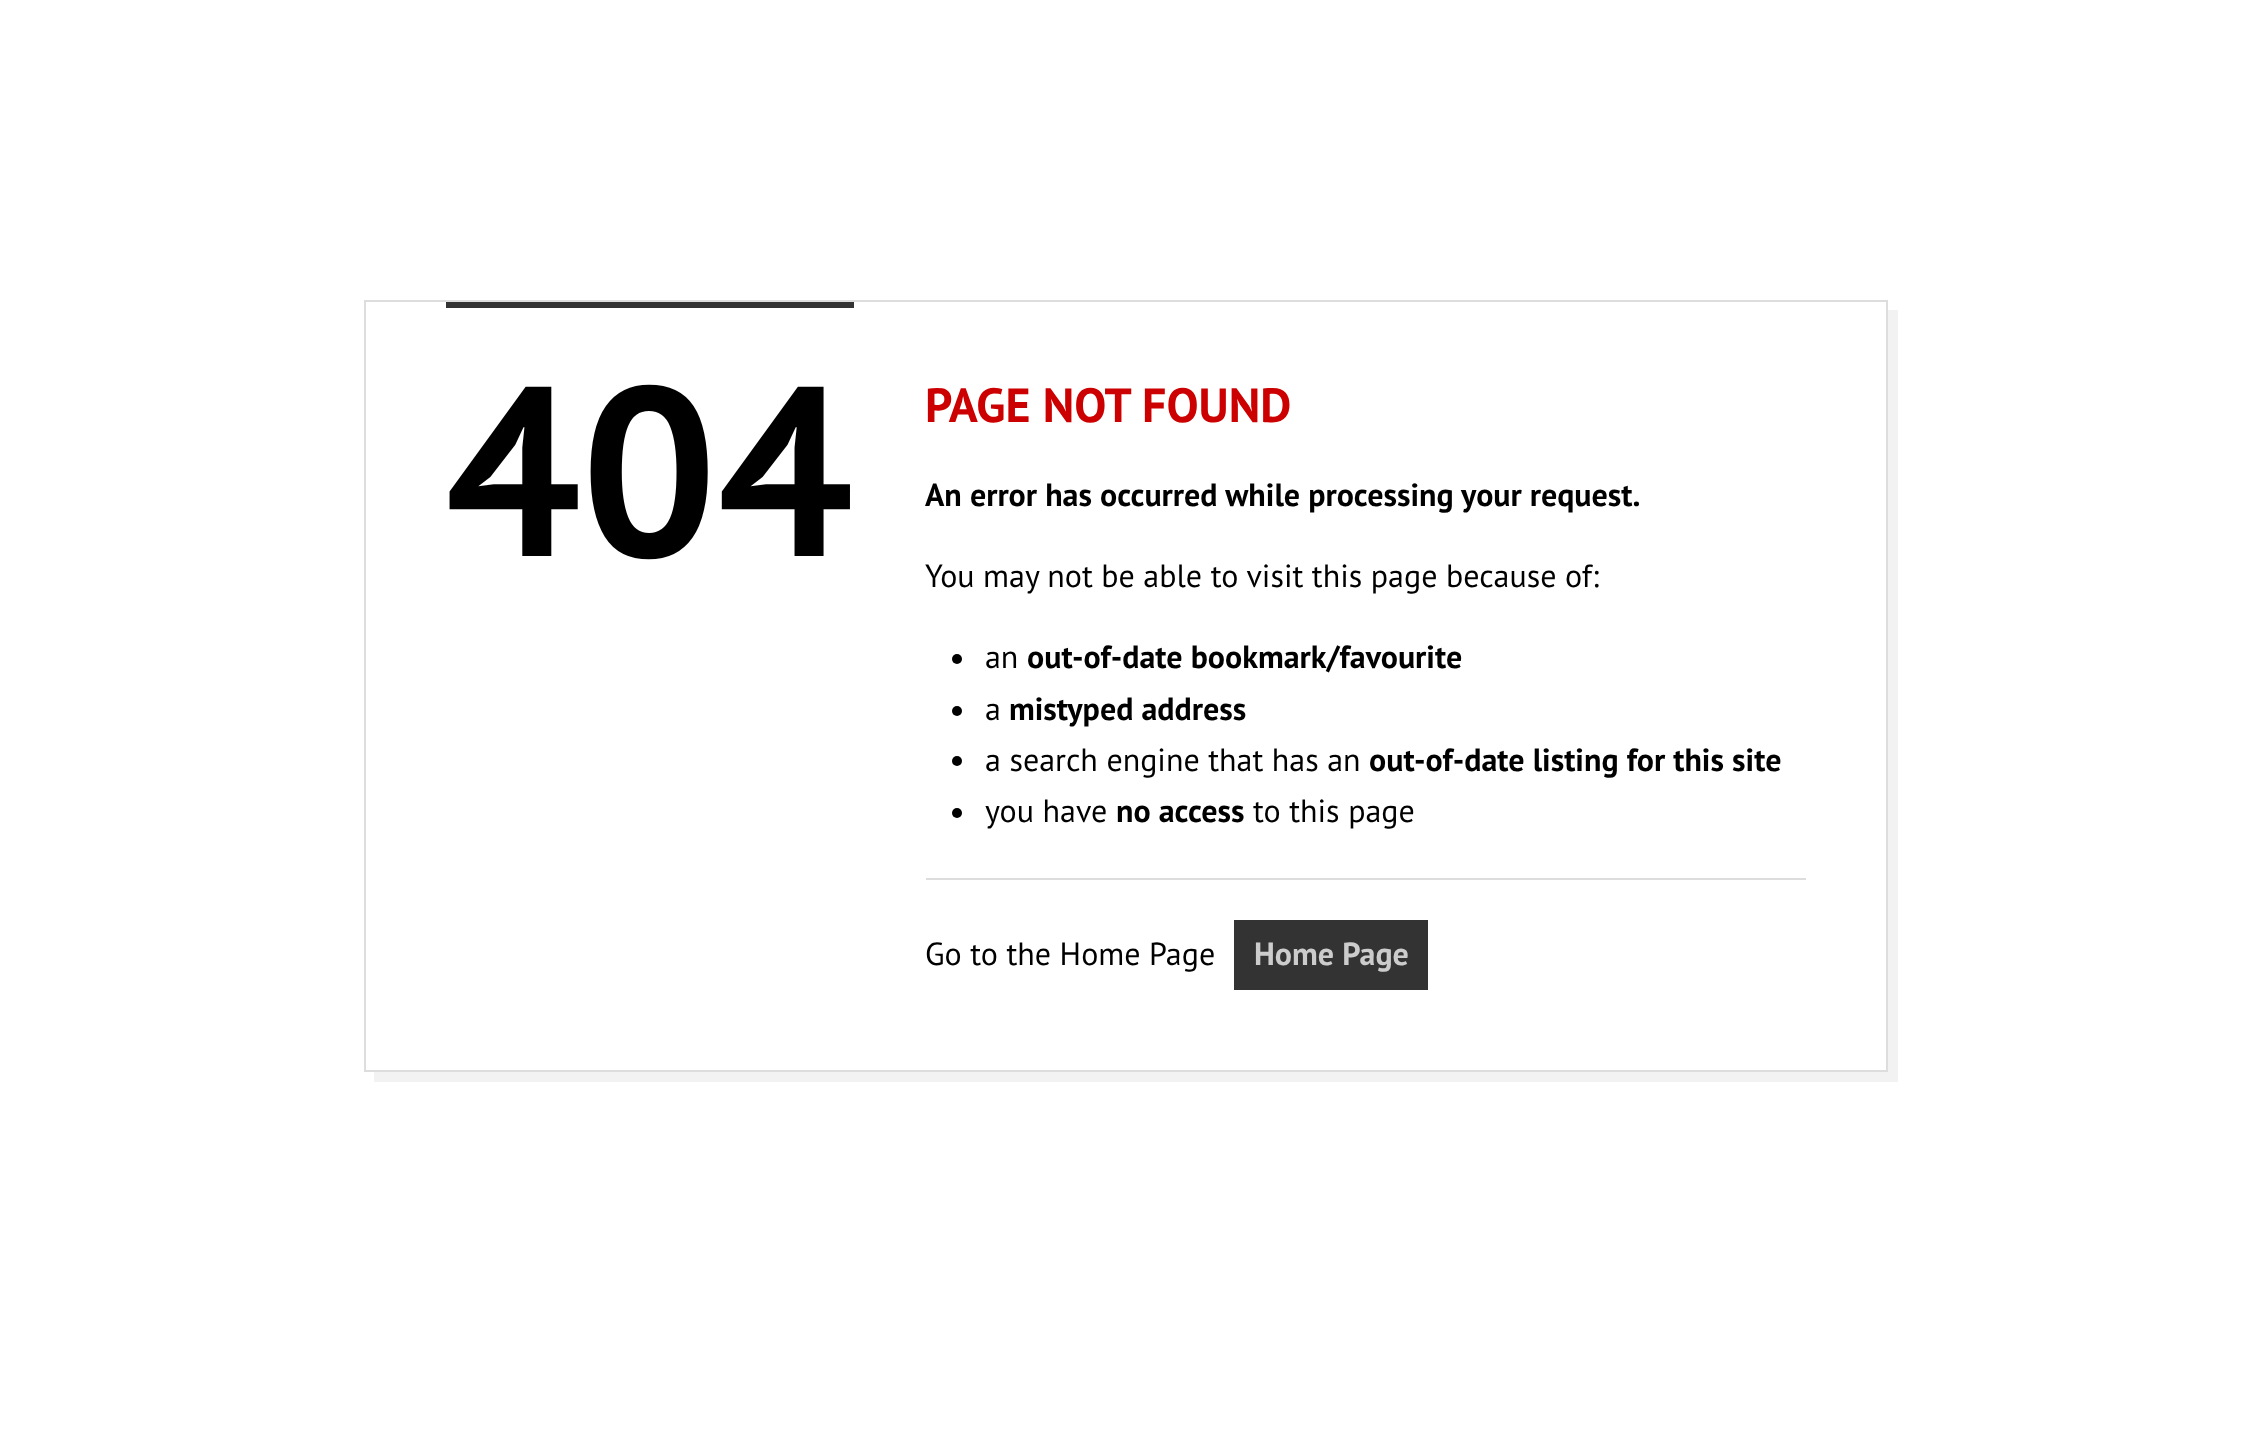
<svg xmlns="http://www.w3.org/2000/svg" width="2250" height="1440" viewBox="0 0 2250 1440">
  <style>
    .t1 { font: bold 240px PT Sans; fill: #000; }
    .t2 { font: bold 48px PT Sans; fill: #c00; }
    .t3 { font: bold 32px PT Sans; fill: #000; }
    .t4 { font: 32px PT Sans; fill: #000; }
    .t5 { font: bold 32px PT Sans; fill: #ccc; }
  </style>
  <rect width="100%" height="100%" fill="#fff"/>
  <path d="M374 1072V1082H1898V310H1888V1072Z" fill="#f2f2f2"/>
  <rect x="365" y="301" width="1522" height="770" fill="none" stroke="#ddd" stroke-width="2"/>
  <rect x="446" y="302" width="408" height="6" fill="#333"/>
  <text x="445" y="556" class="t1">404</text>
  <text x="925" y="422" class="t2">PAGE NOT FOUND</text>
  <text x="925" y="506" class="t3">An error has occurred while processing your request.</text>
  <text x="925" y="587" class="t4">You may not be able to visit this page because of:</text>
  <circle cx="957" cy="659" r="5" fill="#000"/>
  <text x="985" y="668" class="t4">an</text>
  <text x="1027" y="668" class="t3">out-of-date bookmark/favourite</text>
  <circle cx="957" cy="711" r="5" fill="#000"/>
  <text x="985" y="720" class="t4">a</text>
  <text x="1009" y="720" class="t3">mistyped address</text>
  <circle cx="957" cy="761" r="5" fill="#000"/>
  <text x="985" y="771" class="t4">a search engine that has an</text>
  <text x="1369" y="771" class="t3">out-of-date listing for this site</text>
  <circle cx="957" cy="813" r="5" fill="#000"/>
  <text x="985" y="822" class="t4">you have</text>
  <text x="1116" y="822" class="t3">no access</text>
  <text x="1253" y="822" class="t4">to this page</text>
  <rect x="926" y="878" width="880" height="2" fill="#ddd"/>
  <text x="925" y="965" class="t4">Go to the Home Page</text>
  <rect x="1234" y="920" width="194" height="70" fill="#333"/>
  <text x="1254" y="965" class="t5">Home Page</text>
</svg>
